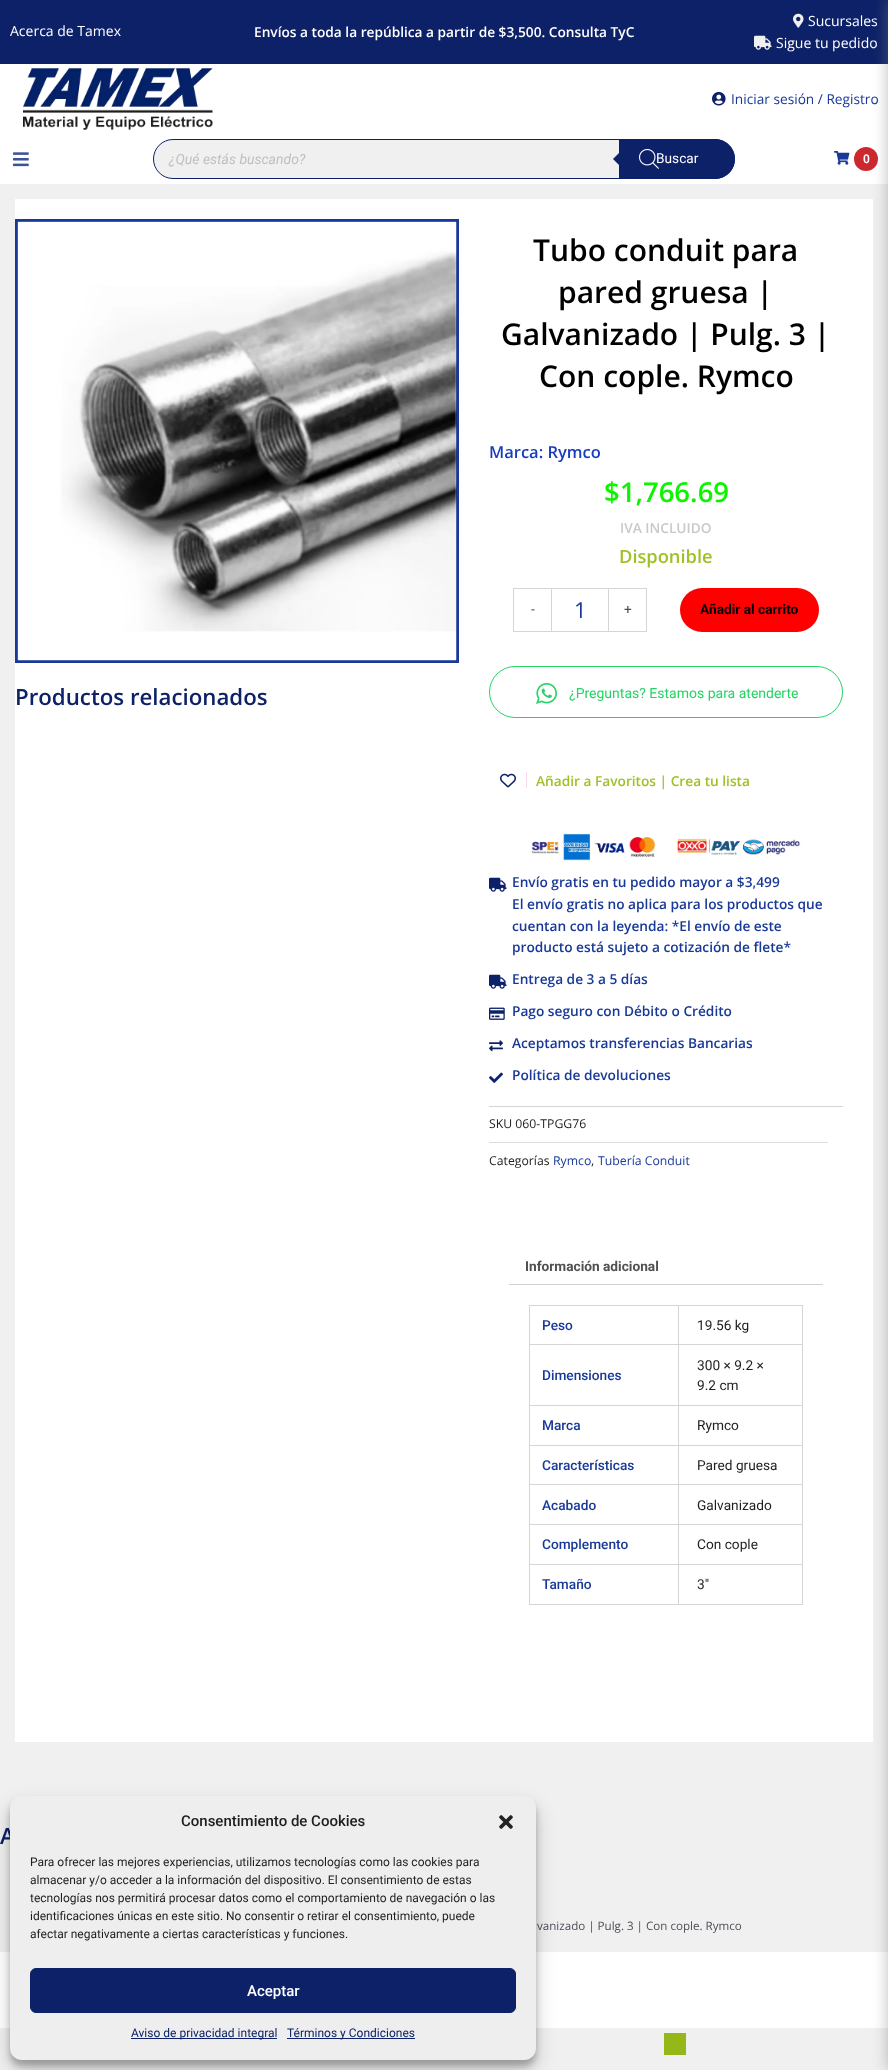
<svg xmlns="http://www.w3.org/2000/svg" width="888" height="2070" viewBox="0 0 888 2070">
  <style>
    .t1 { font: 14px Open Sans; fill: #fff; }
    .t2 { font: 600 13.7px Open Sans; fill: #fff; }
    .t3 { font: 13.7px Open Sans; fill: #193998; }
    .t4 { font: italic 14px Roboto; fill: #bfc0c2; }
    .t5 { font: 13.7px Roboto; fill: #fff; }
    .t6 { font: 600 12px Roboto; fill: #fff; }
    .t7 { font: 600 22.25px Open Sans; fill: #0d2168; }
    .t8 { font: 600 30px Open Sans; fill: #000; }
    .t9 { font: 600 16.5px Open Sans; fill: #173cc0; }
    .t10 { font: 600 27.5px Open Sans; fill: #0ef400; }
    .t11 { font: 600 13.7px Open Sans; fill: #c9c9c9; }
    .t12 { font: 600 18.25px Open Sans; fill: #a0c126; }
    .t13 { font: 13.7px Roboto; fill: #4b4f58; }
    .t14 { font: 22px Open Sans; fill: #193998; }
    .t15 { font: bold 13.7px Roboto; fill: #000006; }
    .t16 { font: 14px Roboto; fill: #25d366; }
    .t17 { font: 600 13.7px Open Sans; fill: #a0c126; }
    .t18 { font: 600 13.7px Open Sans; fill: #193998; }
    .t19 { font: 12.25px Open Sans; fill: #1e1e1e; }
    .t20 { font: 12.25px Open Sans; fill: #193998; }
    .t21 { font: bold 13.7px Roboto; fill: #515151; }
    .t22 { font: 500 13.7px Roboto; fill: #193998; }
    .t23 { font: 13.7px Roboto; fill: #1e1e1e; }
    .t24 { font: 11.6px Open Sans; fill: #4b4f58; }
    .t25 { font: 500 15px Roboto; fill: #1e1e1e; }
    .t26 { font: 12px Roboto; fill: #1e1e1e; }
    .t27 { font: 500 15px Roboto; fill: #fff; }
    .t28 { font: 12px Roboto; fill: #0d2168; }
  </style>
  <rect width="100%" height="100%" fill="#fff"/>
  <rect x="0" y="0" width="888" height="64" fill="#0d2168"/>
  <text x="10" y="36" class="t1">Acerca de Tamex</text>
  <text x="254" y="37" class="t2">Envíos a toda la república a partir de $3,500. Consulta TyC</text>
  <image x="793" y="13" width="11" height="15" href="images/1.png"/>
  <text x="808" y="26" class="t1">Sucursales</text>
  <image x="754" y="35" width="18" height="15" href="images/2.png"/>
  <text x="776" y="48" class="t1">Sigue tu pedido</text>
  <image x="23" y="67" width="190" height="63" href="images/3.png"/>
  <image x="712" y="92" width="14" height="14" href="images/4.png"/>
  <text x="731" y="104" class="t3">Iniciar sesión / Registro</text>
  <image x="13" y="152" width="16" height="15" href="images/5.png"/>
  <rect x="153.5" y="139.5" width="581" height="39" rx="19.5" fill="#f0f0f0" stroke="#0d2168"/>
  <text x="169" y="164" class="t4">¿Qué estás buscando?</text>
  <path d="M619 139H715C726 139 735 148 735 159C735 170 726 179 715 179H619Z" fill="#0d2168"/>
  <path d="M621 151V167L613 159Z" fill="#0d2168"/>
  <text x="656" y="163" class="t5">Buscar</text>
  <image x="639" y="149" width="20" height="20" href="images/6.png"/>
  <circle cx="866" cy="159" r="12" fill="#cb282f"/>
  <rect x="0" y="184" width="888" height="1768" fill="#f0f0f0"/>
  <rect x="15" y="199" width="858" height="1543" fill="#fff"/>
  <rect x="0" y="2028" width="888" height="42" fill="#f0f0f0"/>
  <rect x="888" y="0" width="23" height="2070" fill="#7a7a7a80" filter="blur(7.5px)"/>
  <image x="834" y="151" width="16" height="14" href="images/7.png"/>
  <text x="863" y="163" class="t6">0</text>
  <rect x="16.5" y="220.5" width="441" height="441" fill="none" stroke="#193998" stroke-width="3"/>
  <image x="17" y="221" width="440" height="440" href="images/8.png"/>
  <text x="15" y="705" class="t7">Productos relacionados</text>
  <text x="533" y="261" class="t8">Tubo conduit para</text>
  <text x="558" y="303" class="t8">pared gruesa |</text>
  <text x="501" y="345" class="t8">Galvanizado | Pulg. 3 |</text>
  <text x="539" y="387" class="t8">Con cople. Rymco</text>
  <text x="489" y="458" class="t9">Marca: Rymco</text>
  <text x="604" y="502" class="t10">$1,766.69</text>
  <text x="620" y="533" class="t11">IVA INCLUIDO</text>
  <text x="619" y="563" class="t12">Disponible</text>
  <rect x="513" y="588" width="38" height="1" fill="#d5d5d5"/>
  <rect x="513" y="631" width="38" height="1" fill="#d5d5d5"/>
  <rect x="513" y="588" width="1" height="44" fill="#d5d5d5"/>
  <text x="531" y="614" class="t13">-</text>
  <rect x="551.5" y="588.5" width="57" height="43" fill="none" stroke="#d5d5d5"/>
  <text x="574" y="618" class="t14">1</text>
  <rect x="609" y="588" width="38" height="1" fill="#d5d5d5"/>
  <rect x="646" y="588" width="1" height="44" fill="#d5d5d5"/>
  <rect x="609" y="631" width="38" height="1" fill="#d5d5d5"/>
  <text x="624" y="614" class="t13">+</text>
  <rect x="680" y="588" width="139" height="44" rx="22" fill="#f00"/>
  <text x="700" y="614" class="t15">Añadir al carrito</text>
  <rect x="489.5" y="666.5" width="353" height="51" rx="25.5" fill="none" stroke="#25d366"/>
  <image x="536" y="683" width="21" height="21" href="images/9.png"/>
  <text x="569" y="698" class="t16">¿Preguntas? Estamos para atenderte</text>
  <image x="500" y="773" width="16" height="15" href="images/10.png"/>
  <rect x="526" y="772" width="1" height="16" fill="#f9d9f2"/>
  <text x="536" y="786" class="t17">Añadir a Favoritos | Crea tu lista</text>
  <image x="531" y="833" width="125" height="28" href="images/11.png"/>
  <image x="677" y="838" width="124" height="18" href="images/12.png"/>
  <image x="489" y="877" width="18" height="15" href="images/13.png"/>
  <text x="512" y="887" class="t18">Envío gratis en tu pedido mayor a $3,499</text>
  <text x="512" y="909" class="t18">El envío gratis no aplica para los productos que</text>
  <text x="512" y="931" class="t18">cuentan con la leyenda: *El envío de este</text>
  <text x="512" y="952" class="t18">producto está sujeto a cotización de flete*</text>
  <image x="489" y="974" width="18" height="15" href="images/13.png"/>
  <text x="512" y="984" class="t18">Entrega de 3 a 5 días</text>
  <image x="489" y="1007" width="16" height="13" href="images/14.png"/>
  <text x="512" y="1016" class="t18">Pago seguro con Débito o Crédito</text>
  <image x="489" y="1040" width="14" height="12" href="images/15.png"/>
  <text x="512" y="1048" class="t18">Aceptamos transferencias Bancarias</text>
  <image x="489" y="1072" width="14" height="11" href="images/16.png"/>
  <text x="512" y="1080" class="t18">Política de devoluciones</text>
  <rect x="489" y="1106" width="354" height="1" fill="#d5d5d5"/>
  <text x="489" y="1128" class="t19">SKU 060-TPGG76</text>
  <rect x="489" y="1142" width="339" height="1" fill="#ddd"/>
  <text x="489" y="1165" class="t19">Categorías</text>
  <text x="553" y="1165" class="t20">Rymco</text>
  <text x="591" y="1165" class="t19">,</text>
  <text x="598" y="1165" class="t20">Tubería Conduit</text>
  <text x="525" y="1271" class="t21">Información adicional</text>
  <rect x="509" y="1284" width="314" height="1" fill="#d3ced2"/>
  <rect x="529" y="1305" width="274" height="1" fill="#d5d5d5"/>
  <rect x="678" y="1306" width="1" height="299" fill="#d5d5d5"/>
  <rect x="529" y="1344" width="150" height="1" fill="#d5d5d5"/>
  <rect x="529" y="1306" width="1" height="39" fill="#d5d5d5"/>
  <text x="542" y="1330" class="t22">Peso</text>
  <rect x="802" y="1306" width="1" height="299" fill="#d5d5d5"/>
  <rect x="679" y="1344" width="124" height="1" fill="#d5d5d5"/>
  <text x="697" y="1330" class="t23">19.56 kg</text>
  <rect x="529" y="1405" width="274" height="1" fill="#d5d5d5"/>
  <rect x="529" y="1345" width="1" height="61" fill="#d5d5d5"/>
  <text x="542" y="1380" class="t22">Dimensiones</text>
  <text x="697" y="1370" class="t23">300 × 9.2 ×</text>
  <text x="697" y="1390" class="t23">9.2 cm</text>
  <rect x="529" y="1445" width="274" height="1" fill="#d5d5d5"/>
  <rect x="529" y="1406" width="1" height="40" fill="#d5d5d5"/>
  <text x="542" y="1430" class="t22">Marca</text>
  <text x="697" y="1430" class="t23">Rymco</text>
  <rect x="529" y="1484" width="274" height="1" fill="#d5d5d5"/>
  <rect x="529" y="1446" width="1" height="39" fill="#d5d5d5"/>
  <text x="542" y="1470" class="t22">Características</text>
  <text x="697" y="1470" class="t23">Pared gruesa</text>
  <rect x="529" y="1524" width="274" height="1" fill="#d5d5d5"/>
  <rect x="529" y="1485" width="1" height="40" fill="#d5d5d5"/>
  <text x="542" y="1510" class="t22">Acabado</text>
  <text x="697" y="1510" class="t23">Galvanizado</text>
  <rect x="529" y="1564" width="274" height="1" fill="#d5d5d5"/>
  <rect x="529" y="1525" width="1" height="40" fill="#d5d5d5"/>
  <text x="542" y="1549" class="t22">Complemento</text>
  <text x="697" y="1549" class="t23">Con cople</text>
  <rect x="529" y="1604" width="274" height="1" fill="#d5d5d5"/>
  <rect x="529" y="1565" width="1" height="40" fill="#d5d5d5"/>
  <text x="542" y="1589" class="t22">Tamaño</text>
  <text x="697" y="1589" class="t23">3"</text>
  <text x="0" y="1844" class="t7">A</text>
  <text x="537" y="1930" class="t24">vanizado | Pulg. 3 | Con cople. Rymco</text>
  <rect x="664" y="2033" width="22" height="22" fill="#95b717"/>
  <rect x="10" y="1802" width="526" height="264" rx="12" fill="#0000003b" filter="blur(3px)"/>
  <rect x="10" y="1806" width="526" height="264" rx="12" fill="#00000030" filter="blur(10px)"/>
  <rect x="10" y="1796" width="526" height="264" rx="12" fill="#eee"/>
  <text x="181" y="1826" class="t25">Consentimiento de Cookies</text>
  <image x="499" y="1815" width="14" height="14" href="images/17.png"/>
  <text x="30" y="1866" class="t26">Para ofrecer las mejores experiencias, utilizamos tecnologías como las cookies para</text>
  <text x="30" y="1884" class="t26">almacenar y/o acceder a la información del dispositivo. El consentimiento de estas</text>
  <text x="30" y="1902" class="t26">tecnologías nos permitirá procesar datos como el comportamiento de navegación o las</text>
  <text x="30" y="1920" class="t26">identificaciones únicas en este sitio. No consentir o retirar el consentimiento, puede</text>
  <text x="30" y="1938" class="t26">afectar negativamente a ciertas características y funciones.</text>
  <rect x="30.5" y="1968.5" width="485" height="44" rx="5.5" fill="#0d2168" stroke="#0d2168"/>
  <text x="247" y="1996" class="t27">Aceptar</text>
  <rect x="131" y="2038" width="146" height="1" fill="#0d2168"/>
  <text x="131" y="2037" class="t28">Aviso de privacidad integral</text>
  <rect x="287" y="2038" width="128" height="1" fill="#0d2168"/>
  <text x="287" y="2037" class="t28">Términos y Condiciones</text>
</svg>
